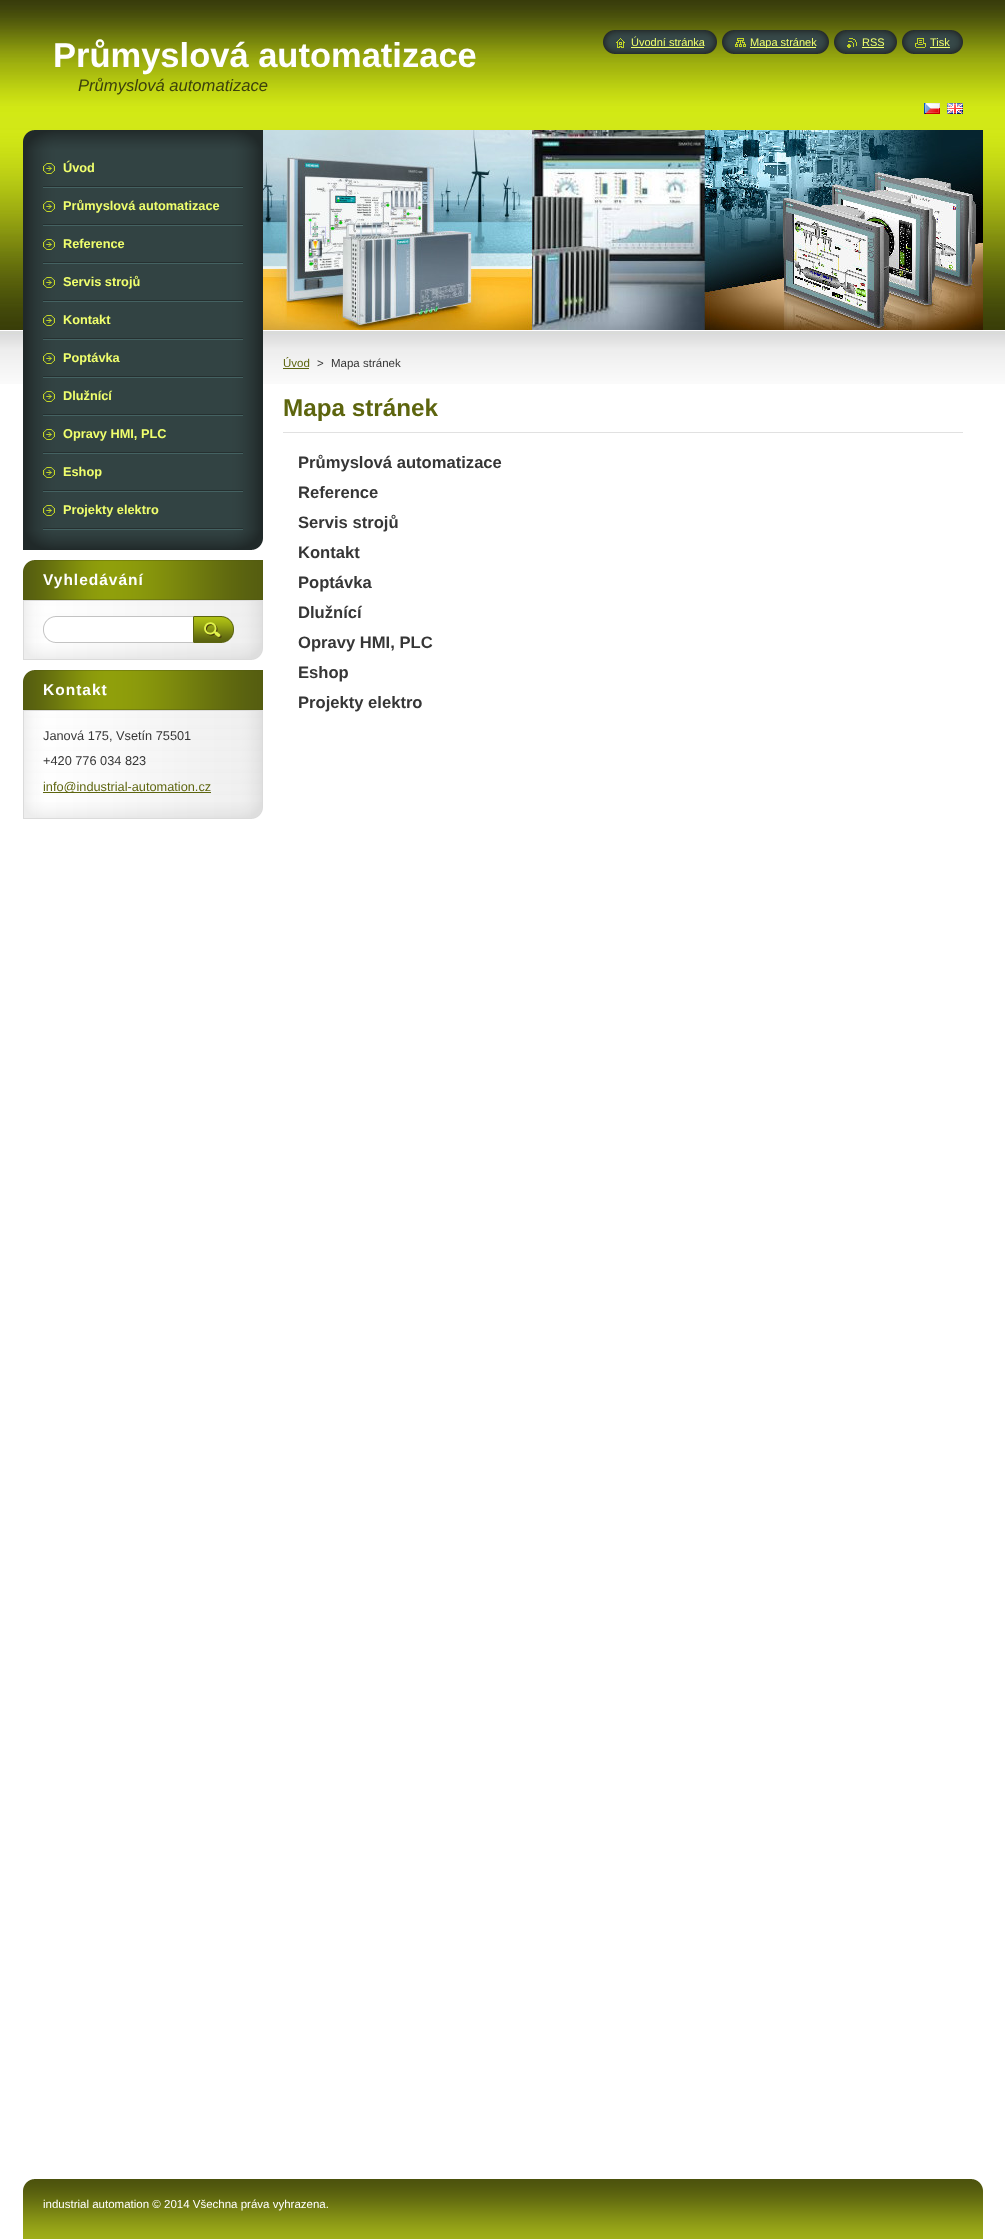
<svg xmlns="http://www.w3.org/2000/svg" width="1005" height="2239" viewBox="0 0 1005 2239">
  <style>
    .t1 { font: bold 34.5px Liberation Sans; fill: #fff; }
    .t2 { font: italic 16.6px Liberation Sans; fill: #3c410c; }
    .t3 { font: 11px Liberation Sans; fill: #f0ff6d; }
    .t4 { font: bold 12.75px Liberation Sans; fill: #f0ff6d; }
    .t5 { font: bold 15.5px Liberation Sans; letter-spacing: 1px; fill: #fff; }
    .t6 { font: 12.75px Liberation Sans; fill: #363636; }
    .t7 { font: 12.75px Liberation Sans; fill: #5d650e; }
    .t8 { font: 11.5px Liberation Sans; fill: #5d650e; }
    .t9 { font: 11.5px Liberation Sans; fill: #363636; }
    .t10 { font: bold 24.25px Liberation Sans; fill: #5d650e; }
    .t11 { font: bold 16.6px Liberation Sans; fill: #363636; }
    .t12 { font: 11.5px Liberation Sans; fill: #fff; }
  </style>
  <rect width="100%" height="100%" fill="#fff"/>
  <image x="0" y="0" width="1005" height="384" href="images/1.png"/>
  <text x="53" y="67" class="t1">Průmyslová automatizace</text>
  <text x="78" y="91" class="t2">Průmyslová automatizace</text>
  <image x="603" y="30" width="13" height="24" href="images/2.png"/>
  <image x="616" y="30" width="101" height="24" href="images/3.png"/>
  <image x="616" y="38" width="9" height="10" href="images/4.png"/>
  <text x="631" y="46" class="t3">Úvodní stránka</text>
  <rect x="631" y="47" width="73" height="1" fill="#f0ff6d"/>
  <image x="722" y="30" width="13" height="24" href="images/2.png"/>
  <image x="735" y="30" width="94" height="24" href="images/5.png"/>
  <image x="735" y="38" width="11" height="9" href="images/6.png"/>
  <rect x="750" y="47" width="66" height="1" fill="#f0ff6d"/>
  <text x="750" y="46" class="t3">Mapa stránek</text>
  <image x="834" y="30" width="13" height="24" href="images/2.png"/>
  <image x="847" y="30" width="50" height="24" href="images/7.png"/>
  <image x="847" y="38" width="10" height="10" href="images/8.png"/>
  <text x="862" y="46" class="t3">RSS</text>
  <rect x="862" y="47" width="22" height="1" fill="#f0ff6d"/>
  <image x="902" y="30" width="13" height="24" href="images/2.png"/>
  <image x="915" y="30" width="48" height="24" href="images/9.png"/>
  <image x="915" y="38" width="11" height="10" href="images/10.png"/>
  <text x="930" y="46" class="t3">Tisk</text>
  <rect x="930" y="47" width="20" height="1" fill="#f0ff6d"/>
  <image x="924" y="103" width="16" height="11" href="images/11.png"/>
  <image x="947" y="103" width="16" height="11" href="images/12.png"/>
  <image x="23" y="130" width="240" height="20" href="images/13.png"/>
  <image x="23" y="530" width="240" height="20" href="images/14.png"/>
  <image x="23" y="150" width="240" height="380" href="images/15.png"/>
  <image x="43" y="186" width="200" height="2" href="images/16.png"/>
  <image x="43" y="163" width="12" height="11" href="images/17.png"/>
  <text x="63" y="172" class="t4">Úvod</text>
  <image x="43" y="224" width="200" height="2" href="images/16.png"/>
  <image x="43" y="201" width="12" height="11" href="images/17.png"/>
  <text x="63" y="210" class="t4">Průmyslová automatizace</text>
  <image x="43" y="262" width="200" height="2" href="images/16.png"/>
  <image x="43" y="239" width="12" height="11" href="images/17.png"/>
  <text x="63" y="248" class="t4">Reference</text>
  <image x="43" y="300" width="200" height="2" href="images/16.png"/>
  <image x="43" y="277" width="12" height="11" href="images/17.png"/>
  <text x="63" y="286" class="t4">Servis strojů</text>
  <image x="43" y="338" width="200" height="2" href="images/16.png"/>
  <image x="43" y="315" width="12" height="11" href="images/17.png"/>
  <text x="63" y="324" class="t4">Kontakt</text>
  <image x="43" y="376" width="200" height="2" href="images/16.png"/>
  <image x="43" y="353" width="12" height="11" href="images/17.png"/>
  <text x="63" y="362" class="t4">Poptávka</text>
  <image x="43" y="414" width="200" height="2" href="images/16.png"/>
  <image x="43" y="391" width="12" height="11" href="images/17.png"/>
  <text x="63" y="400" class="t4">Dlužnící</text>
  <image x="43" y="452" width="200" height="2" href="images/16.png"/>
  <image x="43" y="429" width="12" height="11" href="images/17.png"/>
  <text x="63" y="438" class="t4">Opravy HMI, PLC</text>
  <image x="43" y="490" width="200" height="2" href="images/16.png"/>
  <image x="43" y="467" width="12" height="11" href="images/17.png"/>
  <text x="63" y="476" class="t4">Eshop</text>
  <image x="43" y="528" width="200" height="2" href="images/16.png"/>
  <image x="43" y="505" width="12" height="11" href="images/17.png"/>
  <text x="63" y="514" class="t4">Projekty elektro</text>
  <image x="23" y="643" width="240" height="17" href="images/18.png"/>
  <image x="23" y="560" width="240" height="40" href="images/19.png"/>
  <text x="43" y="585" class="t5">Vyhledávání</text>
  <image x="23" y="601" width="240" height="42" href="images/20.png"/>
  <rect x="23" y="600" width="240" height="1" fill="#dbdbdb"/>
  <image x="43" y="616" width="150" height="27" href="images/21.png"/>
  <image x="193" y="616" width="41" height="27" href="images/22.png"/>
  <image x="23" y="802" width="240" height="17" href="images/18.png"/>
  <image x="23" y="670" width="240" height="40" href="images/19.png"/>
  <text x="43" y="695" class="t5">Kontakt</text>
  <image x="23" y="711" width="240" height="91" href="images/23.png"/>
  <rect x="23" y="710" width="240" height="1" fill="#dbdbdb"/>
  <text x="43" y="740" class="t6">Janová 175, Vsetín 75501</text>
  <text x="43" y="765" class="t6">+420 776 034 823</text>
  <rect x="43" y="792" width="168" height="1" fill="#5d650e"/>
  <text x="43" y="791" class="t7">info@industrial-automation.cz</text>
  <image x="263" y="130" width="720" height="200" href="images/24.png"/>
  <text x="283" y="367" class="t8">Úvod</text>
  <rect x="283" y="368" width="26" height="1" fill="#5d650e"/>
  <text x="317" y="367" class="t9">&gt;</text>
  <text x="331" y="367" class="t9">Mapa stránek</text>
  <rect x="283" y="432" width="680" height="1" fill="#e1e1e1"/>
  <text x="283" y="416" class="t10">Mapa stránek</text>
  <text x="298" y="468" class="t11">Průmyslová automatizace</text>
  <text x="298" y="498" class="t11">Reference</text>
  <text x="298" y="528" class="t11">Servis strojů</text>
  <text x="298" y="558" class="t11">Kontakt</text>
  <text x="298" y="588" class="t11">Poptávka</text>
  <text x="298" y="618" class="t11">Dlužnící</text>
  <text x="298" y="648" class="t11">Opravy HMI, PLC</text>
  <text x="298" y="678" class="t11">Eshop</text>
  <text x="298" y="708" class="t11">Projekty elektro</text>
  <image x="23" y="2179" width="960" height="60" href="images/25.png"/>
  <text x="43" y="2208" class="t12">industrial automation © 2014 Všechna práva vyhrazena.</text>
</svg>
